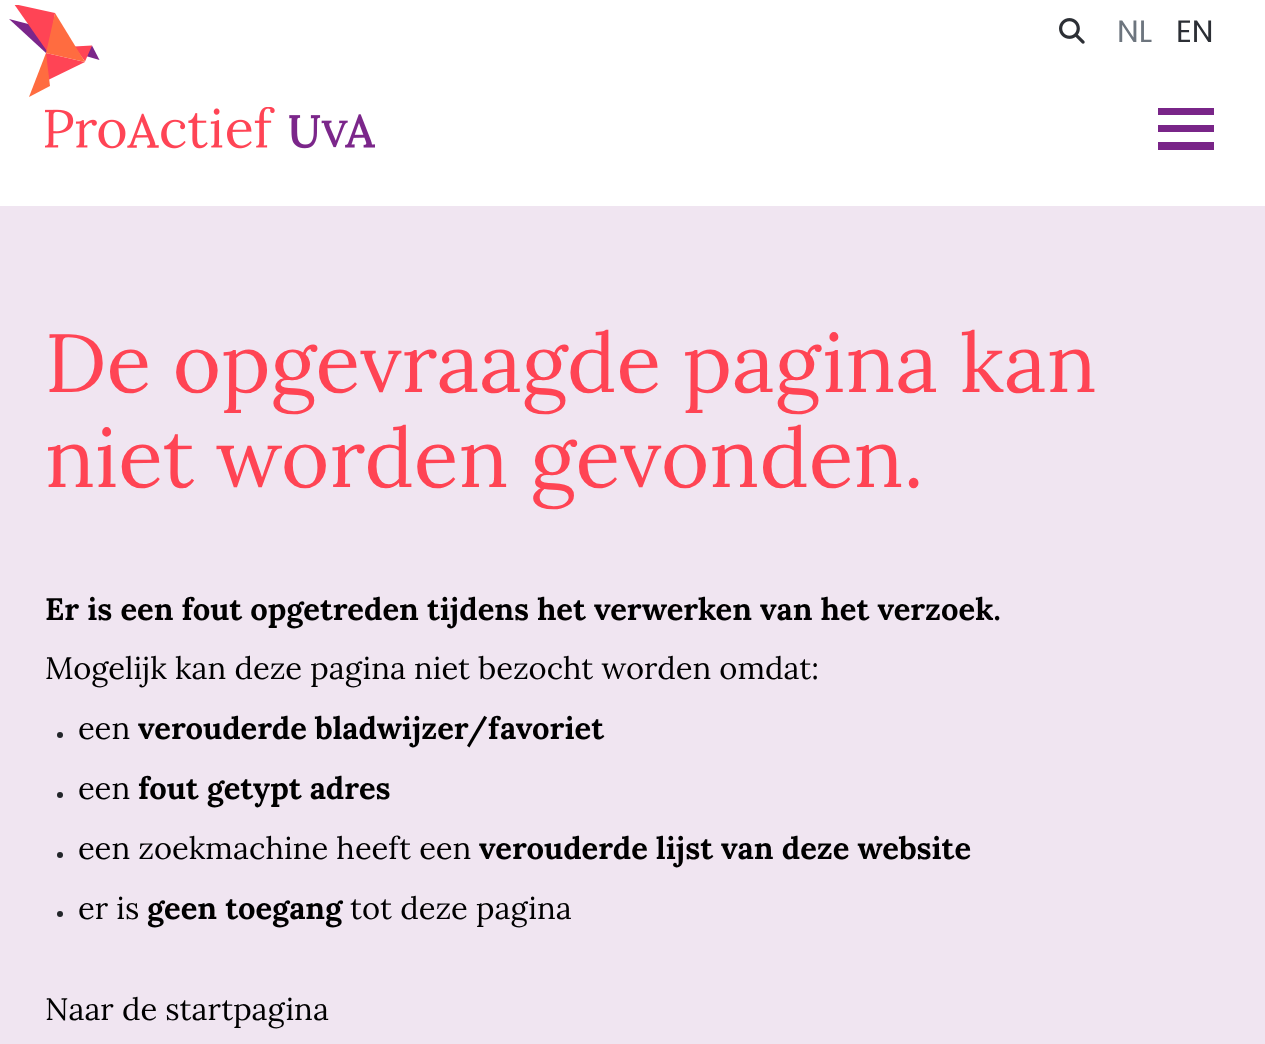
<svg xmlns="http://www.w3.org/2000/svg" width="1265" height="1044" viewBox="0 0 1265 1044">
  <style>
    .t1 { font: 30.95px Poppins; fill: #6d757e; }
    .t2 { font: 30.95px Poppins; fill: #2c2f35; }
    .t3 { font: 82.5px Lora; fill: #ff4454; }
    .t4 { font: bold 30.95px Lora; fill: #000; }
    .t5 { font: 30.95px Lora; fill: #000; }
  </style>
  <defs>
    <clipPath id="clip1"><rect x="9" y="5" width="90" height="93"/></clipPath>
  </defs>
  <rect width="100%" height="100%" fill="#fff"/>
  <path d="M9 19L36 26L53 44L46 53Z" fill="#7b268a"/>
  <path d="M99.5 60L92 45.5L84 55.5Z" fill="#7b268a"/>
  <path d="M74 46.5L92 45.5L85 61.5Z" fill="#f45"/>
  <path d="M85 62L46 53L44 82Z" fill="#f45"/>
  <g clip-path="url(#clip1)">
    <path d="M14 4L49 54L55 13Z" fill="#f45"/>
  </g>
  <path d="M85 62L55 13L46 53Z" fill="#ff6c40"/>
  <path d="M46 53L50 86L29 97Z" fill="#ff6c40"/>
  <image x="45" y="107" width="330" height="42" href="images/1.png"/>
  <rect x="1158" y="108" width="56" height="7" fill="#792588"/>
  <rect x="1158" y="125" width="56" height="7" fill="#792588"/>
  <rect x="1158" y="142" width="56" height="8" fill="#792588"/>
  <image x="1059" y="18" width="26" height="26" href="images/2.png"/>
  <text x="1117" y="42" class="t1">NL</text>
  <text x="1176" y="42" class="t2">EN</text>
  <rect x="0" y="206" width="1265" height="838" fill="#f0e5f1"/>
  <text x="45" y="392" class="t3">De opgevraagde pagina kan</text>
  <text x="45" y="487" class="t3">niet worden gevonden.</text>
  <text x="45" y="620" class="t4">Er is een fout opgetreden tijdens het verwerken van het verzoek.</text>
  <text x="45" y="679" class="t5">Mogelijk kan deze pagina niet bezocht worden omdat:</text>
  <circle cx="60" cy="735" r="3" fill="#22262a"/>
  <text x="78" y="739" class="t5">een</text>
  <text x="138" y="739" class="t4">verouderde bladwijzer/favoriet</text>
  <circle cx="60" cy="795" r="3" fill="#22262a"/>
  <text x="78" y="799" class="t5">een</text>
  <text x="138" y="799" class="t4">fout getypt adres</text>
  <circle cx="60" cy="855" r="3" fill="#22262a"/>
  <text x="78" y="859" class="t5">een zoekmachine heeft een</text>
  <text x="479" y="859" class="t4">verouderde lijst van deze website</text>
  <circle cx="60" cy="914" r="3" fill="#22262a"/>
  <text x="78" y="919" class="t5">er is</text>
  <text x="147" y="919" class="t4">geen toegang</text>
  <text x="350" y="919" class="t5">tot deze pagina</text>
  <text x="45" y="1020" class="t5">Naar de startpagina</text>
</svg>
